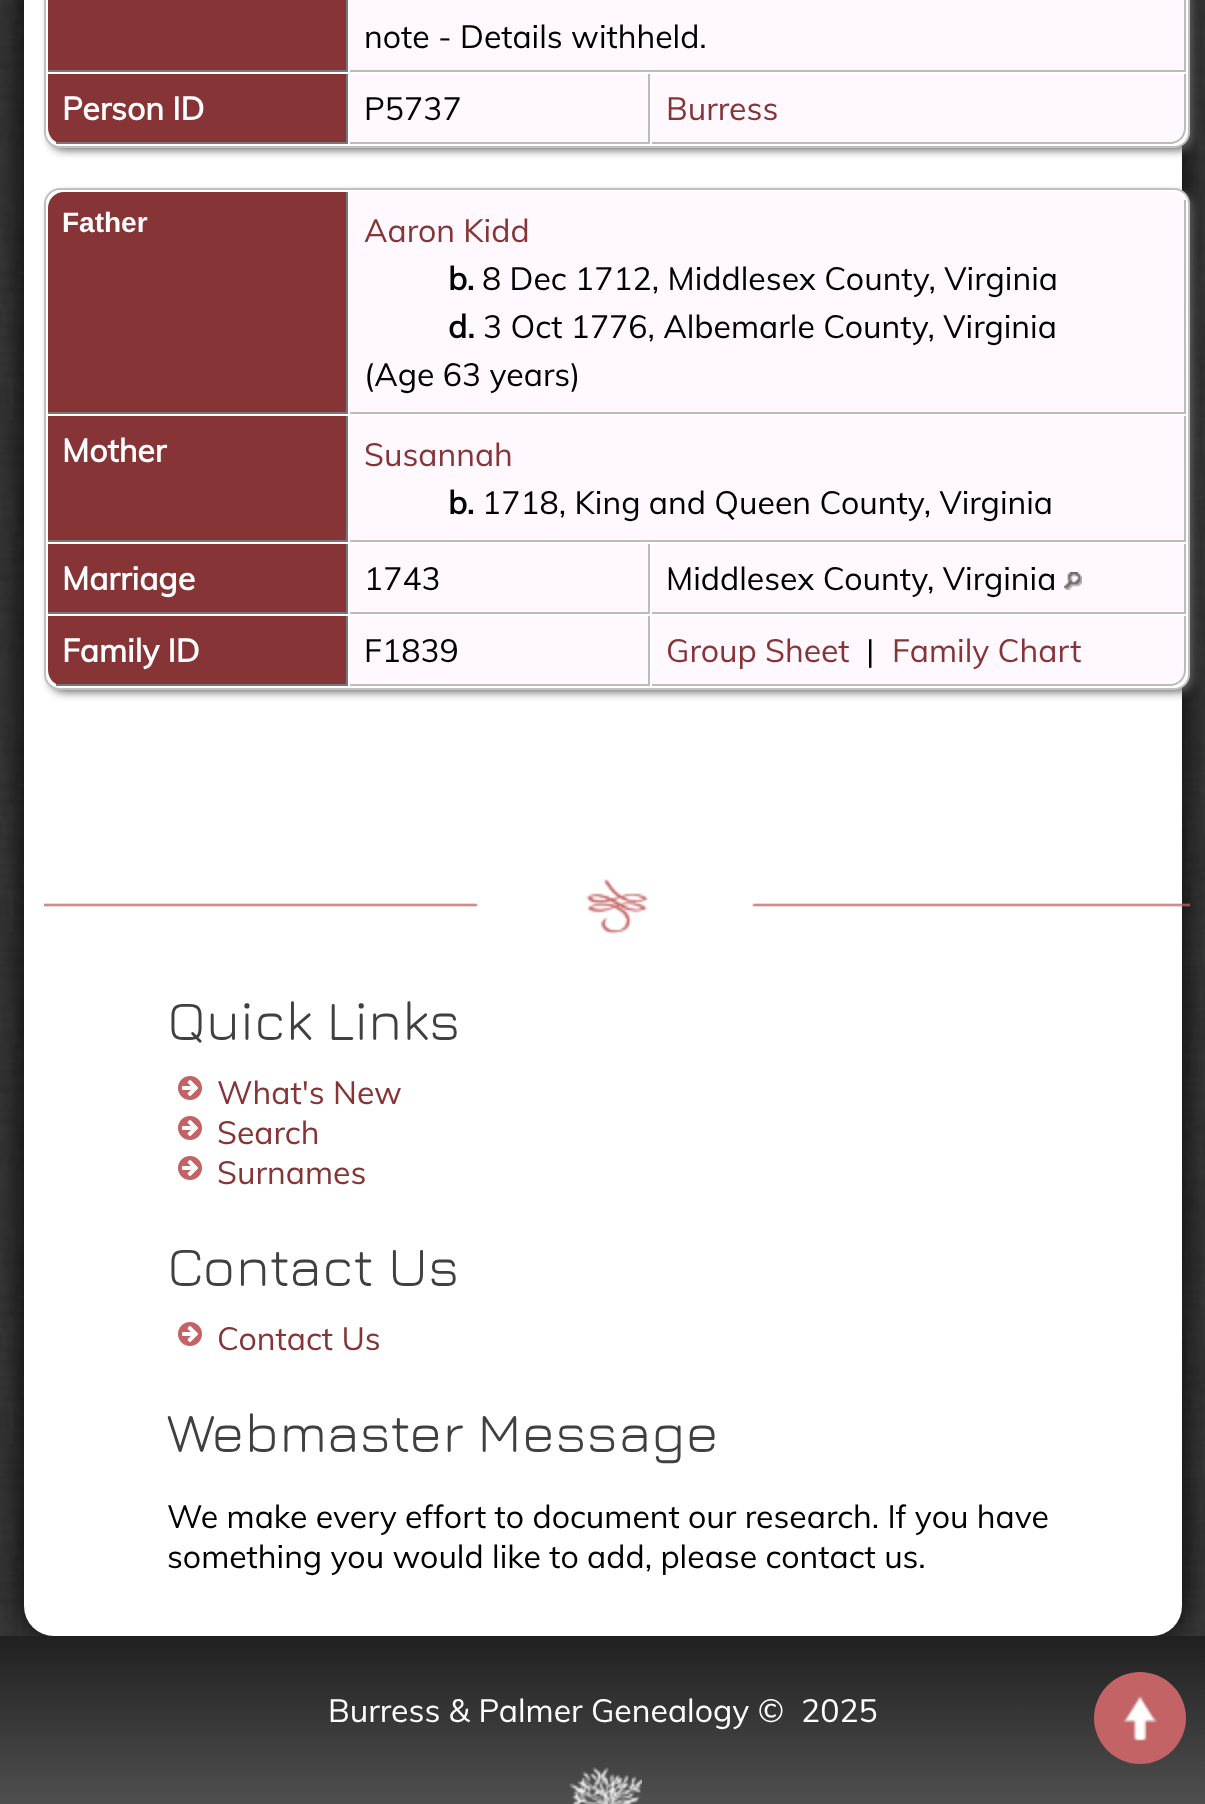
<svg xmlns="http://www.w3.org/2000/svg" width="1205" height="1804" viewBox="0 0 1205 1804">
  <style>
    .t1 { font: 32px Muli; fill: #000; }
    .t2 { font: bold 32px Muli; fill: #fff; }
    .t3 { font: 32px Muli; fill: #863435; }
    .t4 { font: bold 28px Liberation Sans; fill: #fff; }
    .t5 { font: bold 32px Muli; fill: #000; }
    .t6 { font: 300 56px Jura; fill: #404040; }
    .t7 { font: 32px Muli; fill: #fff; }
  </style>
  <defs>
    <linearGradient id="g1" gradientUnits="userSpaceOnUse" x1="603" y1="1636" x2="603" y2="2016"><stop offset="0" stop-color="#202020"/><stop offset="0.5" stop-color="#555"/><stop offset="1" stop-color="#202020"/></linearGradient>
  </defs>
  <rect width="100%" height="100%" fill="#fff"/>
  <image x="0" y="0" width="1205" height="1636" href="images/1.png"/>
  <rect x="24" y="-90" width="1158" height="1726" rx="30" fill="#000" filter="blur(20px)"/>
  <rect x="24" y="-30" width="1158" height="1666" rx="30" fill="#fff"/>
  <rect x="50" y="-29" width="1142" height="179" rx="14" fill="#666" filter="blur(5px)"/>
  <rect x="45" y="-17" width="1144" height="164" rx="15" fill="#fff" stroke="#c0c0c0" stroke-width="2"/>
  <rect x="48" y="0" width="298" height="70" fill="#863435"/>
  <rect x="346" y="0" width="2" height="72" fill="#777"/>
  <rect x="48" y="70" width="300" height="2" fill="#777"/>
  <rect x="350" y="0" width="834" height="70" fill="#fff8fe"/>
  <rect x="1184" y="0" width="2" height="72" fill="#bbb"/>
  <rect x="350" y="70" width="836" height="2" fill="#bbb"/>
  <text x="364" y="48" class="t1">note - Details withheld.</text>
  <path d="M48 74H348V144H64C55 144 48 137 48 128Z" fill="#863435"/>
  <rect x="346" y="74" width="2" height="70" fill="#777"/>
  <rect x="56" y="142" width="292" height="2" fill="#777"/>
  <text x="62" y="120" class="t2">Person ID</text>
  <rect x="350" y="74" width="298" height="68" fill="#fff8fe"/>
  <rect x="648" y="74" width="2" height="70" fill="#bbb"/>
  <rect x="350" y="142" width="300" height="2" fill="#bbb"/>
  <text x="364" y="120" class="t1">P5737</text>
  <path d="M652 74H1186V128C1186 137 1179 144 1170 144H652Z" fill="#fff8fe"/>
  <path d="M652 74H1186V128C1186 137 1179 144 1170 144H652ZM652 74H1184V128C1184 136 1178 142 1170 142H652Z" fill="#bbb" fill-rule="evenodd"/>
  <text x="666" y="120" class="t3">Burress</text>
  <rect x="50" y="194" width="1142" height="498" rx="14" fill="#666" filter="blur(5px)"/>
  <rect x="45" y="189" width="1144" height="500" rx="15" fill="#fff" stroke="#c0c0c0" stroke-width="2"/>
  <path d="M64 192H348V414H48V208C48 199 55 192 64 192Z" fill="#863435"/>
  <rect x="346" y="192" width="2" height="222" fill="#777"/>
  <rect x="48" y="412" width="300" height="2" fill="#777"/>
  <text x="62" y="232" class="t4">Father</text>
  <path d="M350 192H1170C1179 192 1186 199 1186 208V414H350Z" fill="#fff8fe"/>
  <rect x="1184" y="200" width="2" height="214" fill="#bbb"/>
  <rect x="350" y="412" width="836" height="2" fill="#bbb"/>
  <text x="364" y="242" class="t3">Aaron Kidd</text>
  <text x="448" y="290" class="t5">b.</text>
  <text x="482" y="290" class="t1">8 Dec 1712, Middlesex County, Virginia</text>
  <text x="448" y="338" class="t5">d.</text>
  <text x="483" y="338" class="t1">3 Oct 1776, Albemarle County, Virginia</text>
  <text x="364" y="386" class="t1">(Age 63 years)</text>
  <rect x="48" y="416" width="298" height="124" fill="#863435"/>
  <rect x="346" y="416" width="2" height="126" fill="#777"/>
  <rect x="48" y="540" width="300" height="2" fill="#777"/>
  <text x="62" y="462" class="t2">Mother</text>
  <rect x="350" y="416" width="834" height="124" fill="#fff8fe"/>
  <rect x="1184" y="416" width="2" height="126" fill="#bbb"/>
  <rect x="350" y="540" width="836" height="2" fill="#bbb"/>
  <text x="364" y="466" class="t3">Susannah</text>
  <text x="448" y="514" class="t5">b.</text>
  <text x="482" y="514" class="t1">1718, King and Queen County, Virginia</text>
  <rect x="48" y="544" width="298" height="68" fill="#863435"/>
  <rect x="346" y="544" width="2" height="70" fill="#777"/>
  <rect x="48" y="612" width="300" height="2" fill="#777"/>
  <text x="62" y="590" class="t2">Marriage</text>
  <rect x="350" y="544" width="298" height="68" fill="#fff8fe"/>
  <rect x="648" y="544" width="2" height="70" fill="#bbb"/>
  <rect x="350" y="612" width="300" height="2" fill="#bbb"/>
  <text x="364" y="590" class="t1">1743</text>
  <rect x="652" y="544" width="532" height="68" fill="#fff8fe"/>
  <rect x="1184" y="544" width="2" height="70" fill="#bbb"/>
  <rect x="652" y="612" width="534" height="2" fill="#bbb"/>
  <text x="666" y="590" class="t1">Middlesex County, Virginia</text>
  <image x="1064" y="572" width="18" height="18" href="images/2.png"/>
  <path d="M48 616H348V686H64C55 686 48 679 48 670Z" fill="#863435"/>
  <rect x="346" y="616" width="2" height="70" fill="#777"/>
  <rect x="56" y="684" width="292" height="2" fill="#777"/>
  <text x="62" y="662" class="t2">Family ID</text>
  <rect x="350" y="616" width="298" height="68" fill="#fff8fe"/>
  <rect x="648" y="616" width="2" height="70" fill="#bbb"/>
  <rect x="350" y="684" width="300" height="2" fill="#bbb"/>
  <text x="364" y="662" class="t1">F1839</text>
  <path d="M652 616H1186V670C1186 679 1179 686 1170 686H652Z" fill="#fff8fe"/>
  <path d="M652 616H1186V670C1186 679 1179 686 1170 686H652ZM652 616H1184V670C1184 678 1178 684 1170 684H652Z" fill="#bbb" fill-rule="evenodd"/>
  <text x="666" y="662" class="t3">Group Sheet</text>
  <text x="866" y="662" class="t1">|</text>
  <text x="892" y="662" class="t3">Family Chart</text>
  <image x="44" y="879" width="1146" height="56" href="images/3.png"/>
  <text x="167" y="1040" class="t6">Quick Links</text>
  <image x="178" y="1076" width="24" height="24" href="images/4.png"/>
  <text x="217" y="1104" class="t3">What's New</text>
  <image x="178" y="1116" width="24" height="24" href="images/4.png"/>
  <text x="217" y="1144" class="t3">Search</text>
  <image x="178" y="1156" width="24" height="24" href="images/4.png"/>
  <text x="217" y="1184" class="t3">Surnames</text>
  <text x="167" y="1286" class="t6">Contact Us</text>
  <image x="178" y="1322" width="24" height="24" href="images/4.png"/>
  <text x="217" y="1350" class="t3">Contact Us</text>
  <text x="167" y="1452" class="t6">Webmaster Message</text>
  <text x="167" y="1528" class="t1">We make every effort to document our research. If you have</text>
  <text x="167" y="1568" class="t1">something you would like to add, please contact us.</text>
  <rect x="0" y="1636" width="1205" height="168" fill="url(#g1)"/>
  <text x="328" y="1722" class="t7">Burress &amp; Palmer Genealogy ©</text>
  <text x="801" y="1722" class="t7">2025</text>
  <image x="569" y="1767" width="73" height="37" href="images/5.png"/>
  <circle cx="1140" cy="1718" r="46" fill="#c36365"/>
  <image x="1123" y="1695" width="34" height="46" href="images/6.png"/>
</svg>
